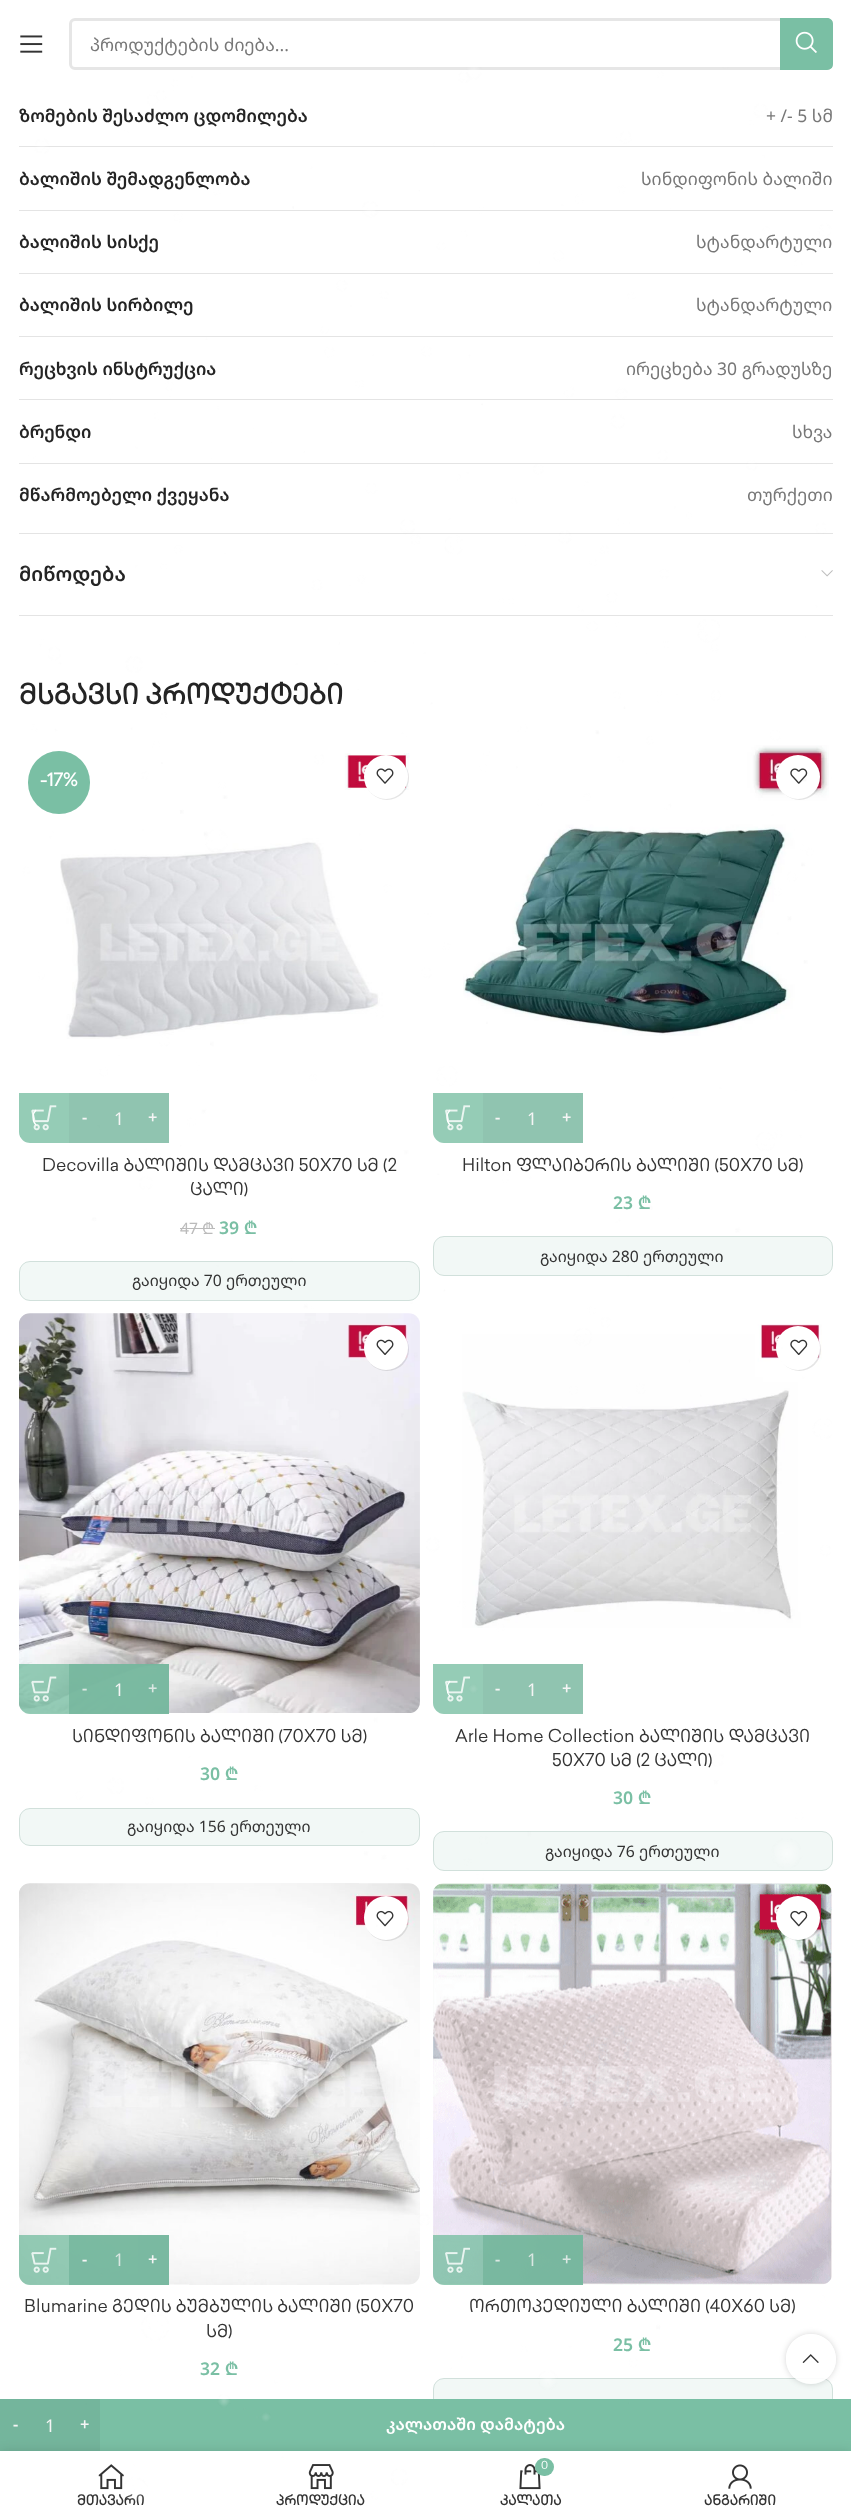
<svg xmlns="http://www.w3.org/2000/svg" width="851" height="2519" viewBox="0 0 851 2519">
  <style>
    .t1 { font: 17.5px Noto Sans Georgian; fill: #777; }
    .t2 { font: 600 17.5px Noto Sans Georgian; fill: #242424; }
    .t3 { font: 600 20px Noto Sans Georgian; fill: #242424; }
    .t4 { font: bold 27.5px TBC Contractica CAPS; fill: #242424; }
    .t5 { font: bold 17.5px TBC Contractica CAPS; fill: #fff; }
    .t6 { font: 600 16.25px Noto Sans Georgian; fill: #f5f5f5; }
    .t7 { font: 17.5px Noto Sans Georgian; fill: #f5f5f5; }
    .t8 { font: 17.5px TBC Contractica CAPS; fill: #333; }
    .t9 { font: 15.75px Noto Sans Georgian; fill: #bbb; }
    .t10 { font: 600 17.5px Noto Sans Georgian; fill: #7abfa4; }
    .t11 { font: 15.75px Noto Sans Georgian; fill: #333; }
    .t12 { font: 600 16.25px Noto Sans Georgian; fill: #dae7e2; }
    .t13 { font: 17.5px Noto Sans Georgian; fill: #dae7e2; }
    .t14 { font: 600 16.25px Noto Sans Georgian; fill: #fff; }
    .t15 { font: bold 13.75px TBC Contractica CAPS; fill: #333; }
    .t16 { font: 11px TBC Contractica CAPS; fill: #fff; }
  </style>
  <defs>
    <clipPath id="clip1"><path d="M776 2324H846V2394H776ZM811 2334C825 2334 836 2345 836 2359C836 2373 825 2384 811 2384C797 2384 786 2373 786 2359C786 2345 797 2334 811 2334Z" clip-rule="evenodd"/></clipPath>
  </defs>
  <rect width="100%" height="100%" fill="#fff"/>
  <image x="20" y="35" width="23" height="18" href="images/1.png"/>
  <rect x="70.5" y="19.5" width="761" height="49" rx="4.5" fill="none" stroke="#e6e6e6" stroke-width="3"/>
  <text x="90" y="51" class="t1">პროდუქტების ძიება...</text>
  <path d="M780 18H827C830.5 18 833 20.5 833 24V64C833 67.5 830.5 70 827 70H780Z" fill="#7abfa4"/>
  <image x="795" y="31" width="22" height="22" href="images/2.png"/>
  <rect x="19" y="533" width="814" height="1" fill="#e4e4e4"/>
  <rect x="19" y="146" width="814" height="1" fill="#e4e4e4"/>
  <text x="19" y="122" class="t2">ზომების შესაძლო ცდომილება</text>
  <text x="766" y="122" class="t1">+ /- 5 სმ</text>
  <rect x="19" y="210" width="814" height="1" fill="#e4e4e4"/>
  <text x="19" y="185" class="t2">ბალიშის შემადგენლობა</text>
  <text x="641" y="185" class="t1">სინდიფონის ბალიში</text>
  <rect x="19" y="273" width="814" height="1" fill="#e4e4e4"/>
  <text x="19" y="248" class="t2">ბალიშის სისქე</text>
  <text x="696" y="248" class="t1">სტანდარტული</text>
  <rect x="19" y="336" width="814" height="1" fill="#e4e4e4"/>
  <text x="19" y="311" class="t2">ბალიშის სირბილე</text>
  <text x="696" y="311" class="t1">სტანდარტული</text>
  <rect x="19" y="399" width="814" height="1" fill="#e4e4e4"/>
  <text x="19" y="375" class="t2">რეცხვის ინსტრუქცია</text>
  <text x="626" y="375" class="t1">ირეცხება 30 გრადუსზე</text>
  <rect x="19" y="463" width="814" height="1" fill="#e4e4e4"/>
  <text x="19" y="438" class="t2">ბრენდი</text>
  <text x="792" y="438" class="t1">სხვა</text>
  <text x="19" y="501" class="t2">მწარმოებელი ქვეყანა</text>
  <text x="747" y="501" class="t1">თურქეთი</text>
  <rect x="19" y="615" width="814" height="1" fill="#e4e4e4"/>
  <text x="19" y="581" class="t3">მიწოდება</text>
  <image x="821" y="570" width="12" height="7" href="images/3.png"/>
  <text x="19" y="704" class="t4">მსგავსი პროდუქტები</text>
  <image x="60" y="753" width="350" height="286" href="images/4.png"/>
  <rect x="28" y="751" width="62" height="63" rx="31" fill="#7abfa4"/>
  <text x="40" y="786" class="t5">-17%</text>
  <rect x="365" y="756" width="44" height="44" rx="22" fill="#0000001a" filter="blur(0.5px)"/>
  <circle cx="386" cy="777" r="22" fill="#fff"/>
  <image x="376" y="768" width="18" height="16" href="images/5.png"/>
  <path d="M19 1093H169V1143H30C24 1143 19 1138 19 1132Z" fill="#95ccb6"/>
  <image x="31" y="1105" width="26" height="26" href="images/6.png"/>
  <path d="M36 1125C32 1121 32 1114 36 1110" fill="none" stroke="#fff" stroke-width="1.2"/>
  <rect x="69" y="1093" width="100" height="50" fill="#90c4b0"/>
  <text x="82" y="1123" class="t6">-</text>
  <text x="114" y="1125" class="t7">1</text>
  <text x="148" y="1123" class="t6">+</text>
  <text x="42" y="1171" class="t8">Decovilla ბალიშის დამცავი 50X70 სმ (2</text>
  <text x="190" y="1195" class="t8">ცალი)</text>
  <text x="180" y="1234" class="t9">47 ₾</text>
  <rect x="180" y="1228" width="35" height="1" fill="#bbb"/>
  <text x="219" y="1234" class="t10">39 ₾</text>
  <rect x="19.5" y="1261.5" width="400" height="39" rx="10.5" fill="#f2f8f6" stroke="#d1e0db"/>
  <text x="132" y="1286" class="t11">გაიყიდა 70 ერთეული</text>
  <image x="463" y="745" width="366" height="291" href="images/7.png"/>
  <rect x="778" y="756" width="43" height="44" rx="21.5" fill="#0000001a" filter="blur(0.5px)"/>
  <circle cx="798" cy="777" r="22" fill="#fff"/>
  <image x="790" y="768" width="18" height="16" href="images/8.png"/>
  <path d="M433 1093H583V1143H444C438 1143 433 1138 433 1132Z" fill="#95ccb6"/>
  <image x="445" y="1105" width="25" height="26" href="images/9.png"/>
  <path d="M450 1125C446 1121 446 1114 450 1110" fill="none" stroke="#fff" stroke-width="1.2"/>
  <rect x="483" y="1093" width="100" height="50" fill="#90c4b0"/>
  <text x="495" y="1123" class="t6">-</text>
  <text x="527" y="1125" class="t7">1</text>
  <text x="562" y="1123" class="t6">+</text>
  <text x="462" y="1171" class="t8">Hilton ფლაიბერის ბალიში (50X70 სმ)</text>
  <text x="613" y="1209" class="t10">23 ₾</text>
  <rect x="433.5" y="1236.5" width="399" height="39" rx="10.5" fill="#f2f8f6" stroke="#d1e0db"/>
  <text x="540" y="1262" class="t11">გაიყიდა 280 ერთეული</text>
  <image x="19" y="1313" width="401" height="400" href="images/10.png"/>
  <rect x="365" y="1328" width="44" height="43" rx="21.5" fill="#0000001a" filter="blur(0.5px)"/>
  <circle cx="386" cy="1348" r="22" fill="#fff"/>
  <image x="376" y="1339" width="18" height="16" href="images/11.png"/>
  <path d="M19 1664H169V1714H30C24 1714 19 1709 19 1703Z" fill="#7abfa4cc"/>
  <image x="31" y="1676" width="26" height="26" href="images/12.png"/>
  <rect x="69" y="1664" width="31" height="50" fill="#74b59ccc"/>
  <text x="82" y="1694" class="t12">-</text>
  <rect x="100" y="1664" width="38" height="50" fill="#74b59ccc"/>
  <text x="114" y="1696" class="t7">1</text>
  <rect x="138" y="1664" width="31" height="50" fill="#74b59ccc"/>
  <text x="148" y="1694" class="t12">+</text>
  <text x="72" y="1742" class="t8">სინდიფონის ბალიში (70X70 სმ)</text>
  <text x="200" y="1780" class="t10">30 ₾</text>
  <rect x="19.5" y="1808.5" width="400" height="37" rx="10.5" fill="#f2f8f6" stroke="#d1e0db"/>
  <text x="127" y="1832" class="t11">გაიყიდა 156 ერთეული</text>
  <image x="462" y="1324" width="360" height="304" href="images/13.png"/>
  <rect x="778" y="1328" width="43" height="43" rx="21.5" fill="#0000001a" filter="blur(0.5px)"/>
  <circle cx="798" cy="1348" r="22" fill="#fff"/>
  <image x="790" y="1339" width="18" height="16" href="images/14.png"/>
  <path d="M433 1664H583V1714H444C438 1714 433 1709 433 1703Z" fill="#95ccb6"/>
  <image x="445" y="1676" width="25" height="26" href="images/15.png"/>
  <path d="M450 1696.5C446 1692 446 1685.5 450 1681" fill="none" stroke="#fff" stroke-width="1.2"/>
  <rect x="483" y="1664" width="100" height="50" fill="#90c4b0"/>
  <text x="495" y="1694" class="t6">-</text>
  <text x="527" y="1696" class="t7">1</text>
  <text x="562" y="1694" class="t6">+</text>
  <text x="455" y="1742" class="t8">Arle Home Collection ბალიშის დამცავი</text>
  <text x="552" y="1766" class="t8">50X70 სმ (2 ცალი)</text>
  <text x="613" y="1804" class="t10">30 ₾</text>
  <rect x="433.5" y="1831.5" width="399" height="39" rx="10.5" fill="#f2f8f6" stroke="#d1e0db"/>
  <text x="545" y="1857" class="t11">გაიყიდა 76 ერთეული</text>
  <image x="19" y="1883" width="401" height="402" href="images/16.png"/>
  <rect x="365" y="1898" width="44" height="43" rx="21.5" fill="#0000001a" filter="blur(0.5px)"/>
  <circle cx="386" cy="1918" r="22" fill="#fff"/>
  <image x="376" y="1910" width="18" height="17" href="images/17.png"/>
  <path d="M19 2235H169V2285H30C24 2285 19 2280 19 2274Z" fill="#7abfa4cc"/>
  <image x="31" y="2247" width="26" height="26" href="images/18.png"/>
  <rect x="69" y="2235" width="31" height="50" fill="#74b59ccc"/>
  <text x="82" y="2265" class="t6">-</text>
  <rect x="100" y="2235" width="38" height="50" fill="#74b59ccc"/>
  <text x="114" y="2266" class="t13">1</text>
  <rect x="138" y="2235" width="31" height="50" fill="#7ab9a1"/>
  <text x="148" y="2265" class="t6">+</text>
  <text x="24" y="2312" class="t8">Blumarine გედის ბუმბულის ბალიში (50X70</text>
  <text x="206" y="2337" class="t8">სმ)</text>
  <text x="200" y="2375" class="t10">32 ₾</text>
  <image x="433" y="1883" width="399" height="402" href="images/19.png"/>
  <rect x="778" y="1898" width="43" height="43" rx="21.5" fill="#0000001a" filter="blur(0.5px)"/>
  <circle cx="798" cy="1918" r="22" fill="#fff"/>
  <image x="790" y="1910" width="18" height="17" href="images/20.png"/>
  <path d="M433 2235H583V2285H444C438 2285 433 2280 433 2274Z" fill="#7abfa4cc"/>
  <image x="445" y="2247" width="25" height="26" href="images/21.png"/>
  <rect x="483" y="2235" width="31" height="50" fill="#74b59ccc"/>
  <text x="495" y="2265" class="t12">-</text>
  <rect x="514" y="2235" width="37" height="50" fill="#74b59ccc"/>
  <text x="527" y="2266" class="t13">1</text>
  <rect x="551" y="2235" width="32" height="50" fill="#74b59ccc"/>
  <text x="562" y="2265" class="t12">+</text>
  <text x="469" y="2312" class="t8">ორთოპედიული ბალიში (40X60 სმ)</text>
  <text x="613" y="2351" class="t10">25 ₾</text>
  <rect x="433.5" y="2378.5" width="399" height="39" rx="10.5" fill="#f2f8f6" stroke="#d1e0db"/>
  <g clip-path="url(#clip1)">
    <rect x="786" y="2334" width="50" height="50" rx="25" fill="#0000002b" filter="blur(3px)"/>
  </g>
  <circle cx="811" cy="2359" r="25" fill="#ffffffe6"/>
  <image x="802" y="2354" width="17" height="9" href="images/23.png"/>
  <rect x="0" y="2399" width="100" height="52" fill="#74b59c"/>
  <text x="45" y="2432" class="t7">1</text>
  <text x="80" y="2430" class="t6">+</text>
  <rect x="100" y="2399" width="751" height="52" fill="#7abfa4"/>
  <text x="386" y="2430" class="t14">კალათაში დამატება</text>
  <rect x="0" y="2451" width="851" height="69" fill="#0000001f" filter="blur(5.5px)"/>
  <rect x="0" y="2451" width="851" height="68" fill="#fff"/>
  <image x="98" y="2464" width="26" height="26" href="images/24.png"/>
  <text x="77" y="2505" class="t15">მთავარი</text>
  <image x="308" y="2464" width="26" height="26" href="images/25.png"/>
  <text x="276" y="2505" class="t15">პროდუქცია</text>
  <image x="519" y="2464" width="22" height="26" href="images/26.png"/>
  <rect x="535" y="2458" width="19" height="18" rx="9" fill="#7abfa4"/>
  <text x="541" y="2469" class="t16">0</text>
  <text x="500" y="2505" class="t15">კალათა</text>
  <image x="728" y="2464" width="24" height="25" href="images/27.png"/>
  <text x="704" y="2505" class="t15">ანგარიში</text>
  <image x="20" y="67" width="812" height="2438" href="images/22.png"/>
  <text x="13" y="2430" class="t6">-</text>
</svg>
